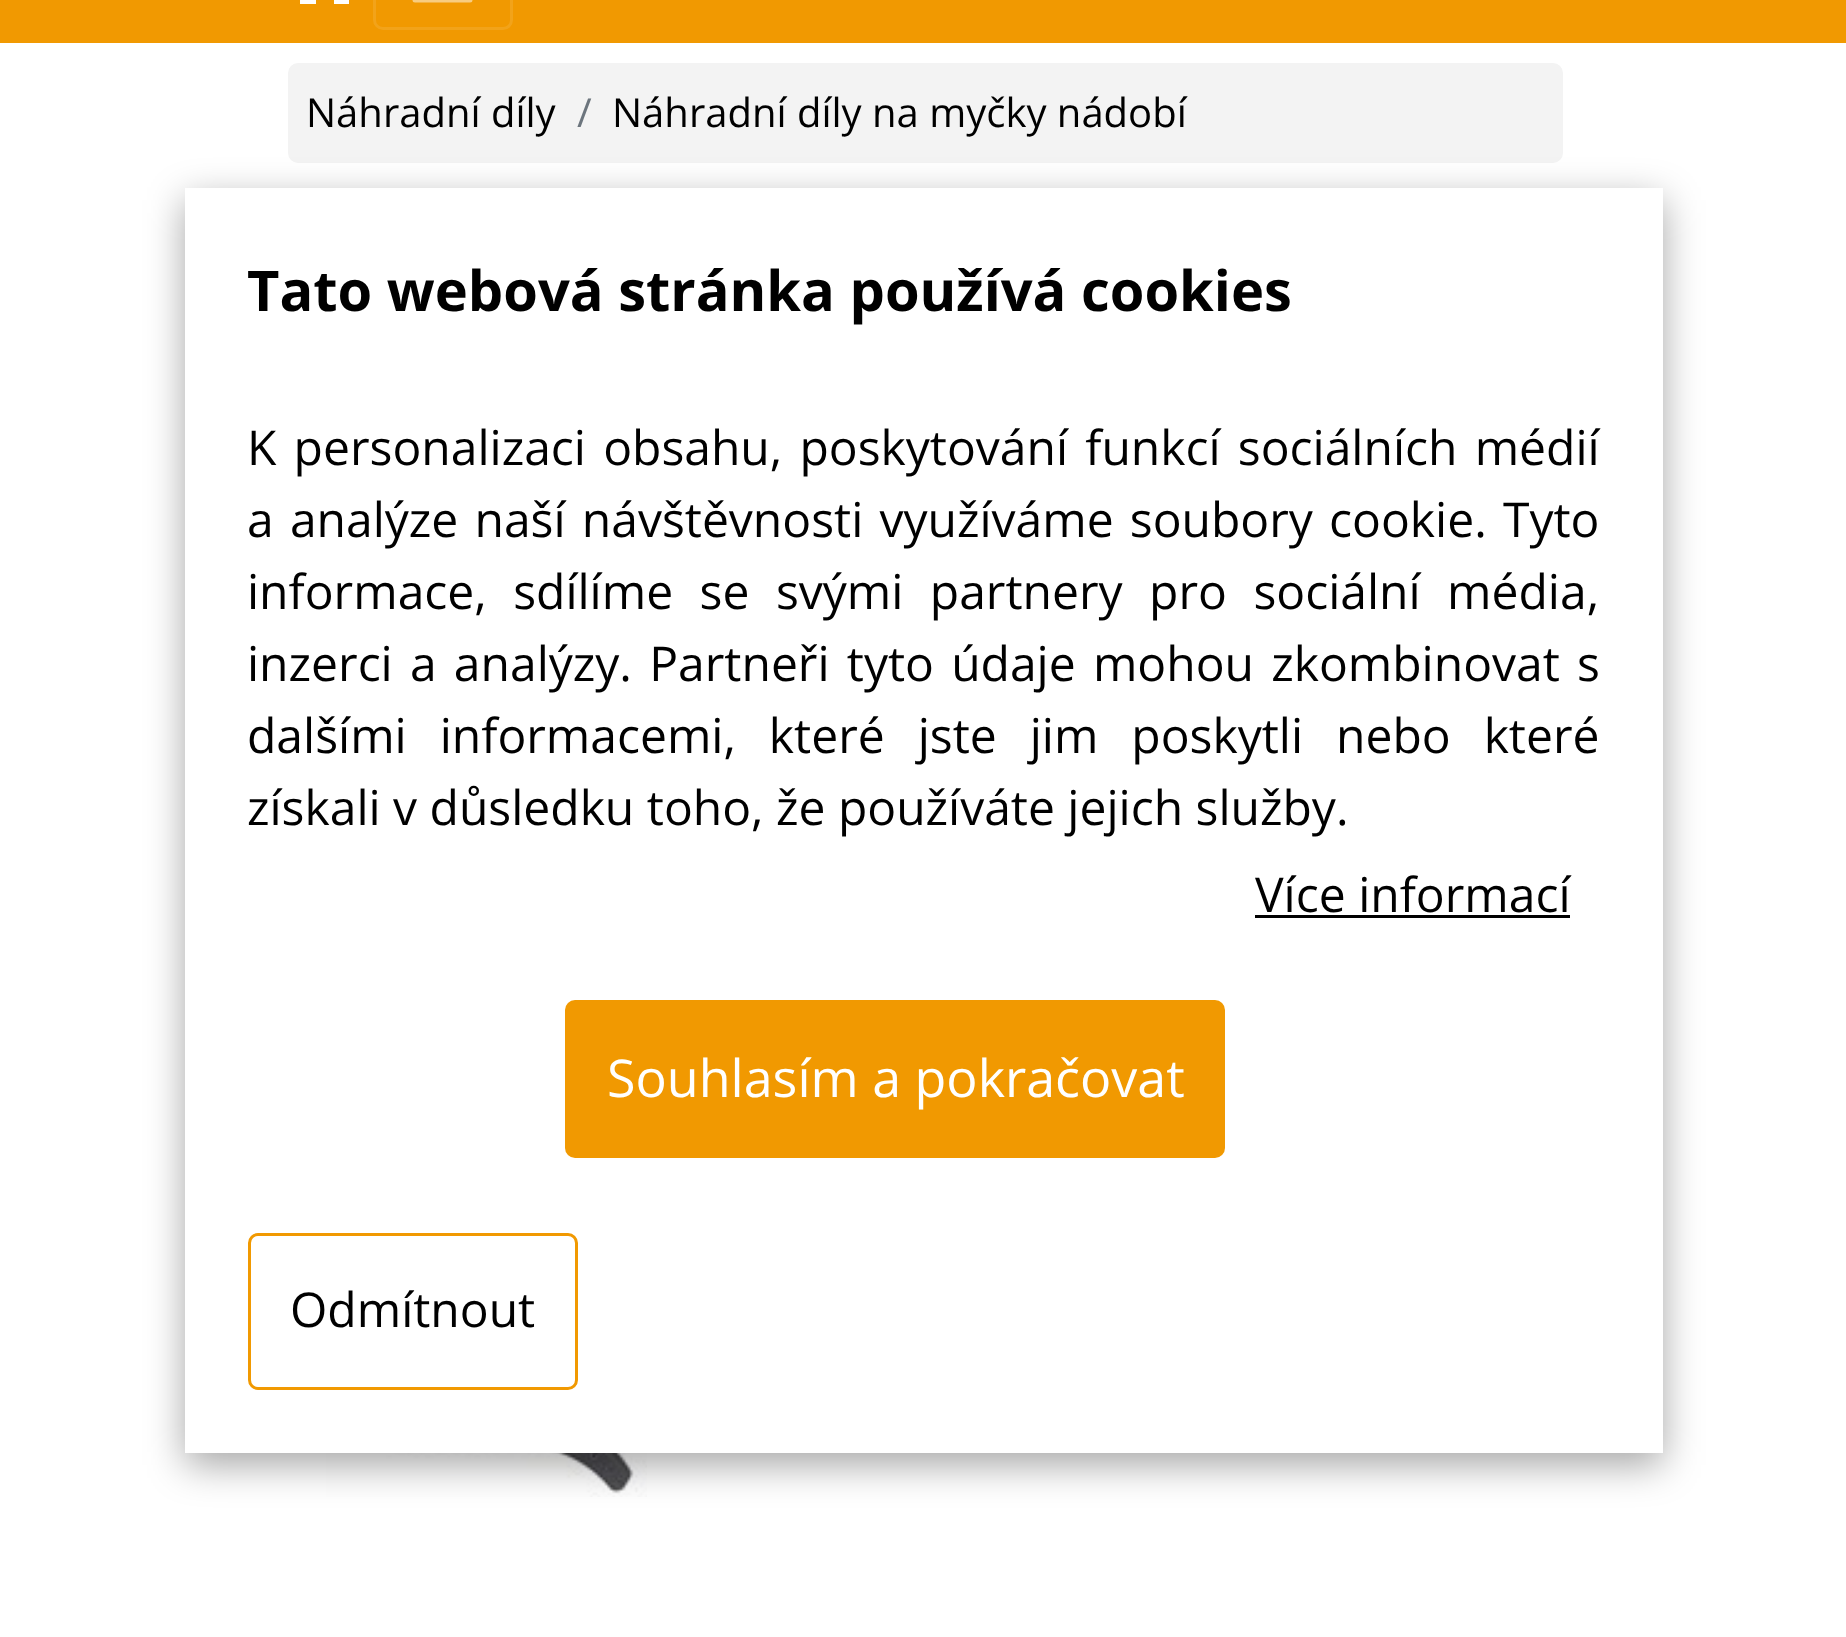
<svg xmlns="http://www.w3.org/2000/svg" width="1846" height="1637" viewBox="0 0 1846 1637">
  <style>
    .t1 { font: 40px Open Sans; fill: #000; }
    .t2 { font: 40px Open Sans; fill: #6c757d; }
    .t3 { font: bold 56px Open Sans; fill: #000; }
    .t4 { font: 48px Open Sans; fill: #000; }
    .t5 { font: 52px Open Sans; fill: #fff; }
  </style>
  <rect width="100%" height="100%" fill="#fff"/>
  <rect x="0" y="0" width="1846" height="43" fill="#f19901"/>
  <path d="M338-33L349-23V4H334V-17H316V4H300V-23L325-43Z" fill="#fff"/>
  <rect x="374.5" y="-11.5" width="137" height="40" rx="8.5" fill="none" stroke="#f2a31a" stroke-width="3"/>
  <path d="M415-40H470M415-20H470M415 0H470" fill="none" stroke="#f8cc80" stroke-width="5" stroke-linecap="round"/>
  <rect x="288" y="63" width="1275" height="100" rx="10" fill="#f3f3f3"/>
  <text x="306" y="127" class="t1">Náhradní díly</text>
  <text x="577" y="127" class="t2">/</text>
  <text x="612" y="127" class="t1">Náhradní díly na myčky nádobí</text>
  <image x="326" y="1453" width="321" height="44" href="images/1.png"/>
  <rect x="185" y="200" width="1478" height="1265" fill="#00000059" filter="blur(19px)"/>
  <rect x="185" y="188" width="1478" height="1265" fill="#fff"/>
  <text x="247" y="311" class="t3">Tato webová stránka používá cookies</text>
  <text x="247" y="465" word-spacing="4.75" class="t4">K personalizaci obsahu, poskytování funkcí sociálních médií</text>
  <text x="247" y="537" word-spacing="3.75" class="t4">a analýze naší návštěvnosti využíváme soubory cookie. Tyto</text>
  <text x="247" y="609" word-spacing="14" class="t4">informace, sdílíme se svými partnery pro sociální média,</text>
  <text x="247" y="681" word-spacing="4.75" class="t4">inzerci a analýzy. Partneři tyto údaje mohou zkombinovat s</text>
  <text x="247" y="753" word-spacing="20.5" class="t4">dalšími informacemi, které jste jim poskytli nebo které</text>
  <text x="247" y="825" class="t4">získali v důsledku toho, že používáte jejich služby.</text>
  <text x="1255" y="912" class="t4">Více informací</text>
  <rect x="1255" y="915" width="315" height="3" fill="#000"/>
  <rect x="565" y="1000" width="660" height="158" rx="10" fill="#f19901"/>
  <text x="607" y="1097" class="t5">Souhlasím a pokračovat</text>
  <rect x="249.5" y="1234.5" width="327" height="154" rx="8.5" fill="none" stroke="#f19901" stroke-width="3"/>
  <text x="290" y="1327" class="t4">Odmítnout</text>
</svg>
